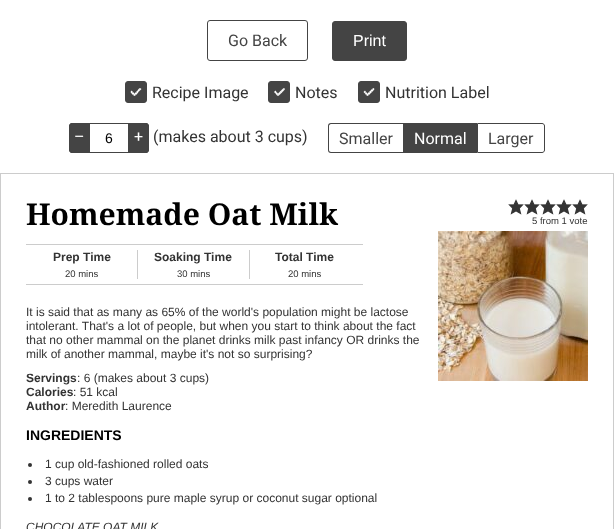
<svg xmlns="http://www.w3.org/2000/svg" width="614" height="529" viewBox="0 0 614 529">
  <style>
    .t1 { font: 16px Roboto; fill: #444; }
    .t2 { font: 16px Liberation Sans; fill: #fff; }
    .t3 { font: 16px Roboto; fill: #333; }
    .t4 { font: 16px Roboto; fill: #fff; }
    .t5 { font: 14px Liberation Sans; fill: #000; }
    .t6 { font: bold 30px Noto Serif; fill: #000; }
    .t7 { font: 9.5px Liberation Sans; fill: #333; }
    .t8 { font: bold 12px Liberation Sans; fill: #333; }
    .t9 { font: 12px Liberation Sans; fill: #333; }
    .t10 { font: bold 14px Liberation Sans; fill: #000; }
    .t11 { font: italic 12px Liberation Sans; fill: #333; }
  </style>
  <rect width="100%" height="100%" fill="#fff"/>
  <rect x="207.5" y="20.5" width="100" height="40" rx="2.5" fill="none" stroke="#444"/>
  <text x="228" y="46" class="t1">Go Back</text>
  <rect x="332.5" y="21.5" width="74" height="39" rx="2.5" fill="#444" stroke="#444"/>
  <text x="353" y="46" class="t2">Print</text>
  <rect x="125.5" y="81.5" width="21" height="21" rx="2.5" fill="#444" stroke="#444"/>
  <text x="152" y="98" class="t3">Recipe Image</text>
  <path d="M140 88L141.5 89L140 90.5L138.5 89Z" fill="#fff"/>
  <path d="M138.5 89L140 90.5L138.5 92L137.5 90.5Z" fill="#fff"/>
  <path d="M137.5 90.5L138.5 92L137.5 93.5L136 92Z" fill="#fff"/>
  <path d="M136 92L137.5 93.5L136 95L134.5 93.5Z" fill="#fff"/>
  <path d="M134.5 93.5L136 95L134.5 96L133 95Z" fill="#fff"/>
  <path d="M133 92L134.5 93.5L133 95L131.5 93.5Z" fill="#fff"/>
  <path d="M131.5 90.5L133 92L131.5 93.5L130.5 92Z" fill="#fff"/>
  <rect x="268.5" y="81.5" width="21" height="21" rx="2.5" fill="#444" stroke="#444"/>
  <text x="295" y="98" class="t3">Notes</text>
  <path d="M284 88L285 89L284 90.5L282.5 89Z" fill="#fff"/>
  <path d="M282.5 89L284 90.5L282.5 92L281 90.5Z" fill="#fff"/>
  <path d="M281 90.5L282.5 92L281 93.5L279.5 92Z" fill="#fff"/>
  <path d="M279.5 92L281 93.5L279.5 95L278 93.5Z" fill="#fff"/>
  <path d="M278 93.5L279.5 95L278 96L276.5 95Z" fill="#fff"/>
  <path d="M276.5 92L278 93.5L276.5 95L275.5 93.5Z" fill="#fff"/>
  <path d="M275.5 90.5L276.5 92L275.5 93.5L274 92Z" fill="#fff"/>
  <rect x="358.5" y="81.5" width="21" height="21" rx="2.5" fill="#444" stroke="#444"/>
  <text x="385" y="98" class="t3">Nutrition Label</text>
  <path d="M373.5 88L374.5 89L373.5 90.5L372 89Z" fill="#fff"/>
  <path d="M372 89L373.5 90.5L372 92L370.5 90.5Z" fill="#fff"/>
  <path d="M370.5 90.5L372 92L370.5 93.5L369 92Z" fill="#fff"/>
  <path d="M369 92L370.5 93.5L369 95L367.5 93.5Z" fill="#fff"/>
  <path d="M367.5 93.5L369 95L367.5 96L366 95Z" fill="#fff"/>
  <path d="M366 92L367.5 93.5L366 95L365 93.5Z" fill="#fff"/>
  <path d="M365 90.5L366 92L365 93.5L363.5 92Z" fill="#fff"/>
  <path d="M72 123H89V153H72C70.5 153 69 151.5 69 150V126C69 124.5 70.5 123 72 123Z" fill="#444"/>
  <path d="M72 123H89V153H72C70.5 153 69 151.5 69 150V126C69 124.5 70.5 123 72 123ZM72 124H89V152H72C71 152 70 151 70 150V126C70 125 71 124 72 124Z" fill="#444" fill-rule="evenodd"/>
  <text x="74" y="142" class="t4">–</text>
  <rect x="89.5" y="123.5" width="39" height="29" fill="none" stroke="#444"/>
  <text x="105" y="143" class="t5">6</text>
  <path d="M129 123H146C147.5 123 149 124.5 149 126V150C149 151.5 147.5 153 146 153H129Z" fill="#444"/>
  <path d="M129 123H146C147.5 123 149 124.5 149 126V150C149 151.5 147.5 153 146 153H129ZM129 124H146C147 124 148 125 148 126V150C148 151 147 152 146 152H129Z" fill="#444" fill-rule="evenodd"/>
  <text x="134" y="142" class="t4">+</text>
  <text x="153" y="142" class="t3">(makes about 3 cups)</text>
  <path d="M331 123H403V153H331C329 153 328 152 328 150V126C328 124 329 123 331 123ZM331 124H403V152H331C330 152 329 151 329 150V126C329 125 330 124 331 124Z" fill="#444" fill-rule="evenodd"/>
  <text x="339" y="144" class="t1">Smaller</text>
  <rect x="403" y="123" width="74" height="30" fill="#444"/>
  <text x="414" y="144" class="t4">Normal</text>
  <path d="M477.5 123.5H542C543.5 123.5 544.5 124.5 544.5 126V150C544.5 151.5 543.5 152.5 542 152.5H477.5Z" fill="none" stroke="#444"/>
  <text x="488" y="144" class="t1">Larger</text>
  <rect x="0.5" y="173.5" width="613" height="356" fill="none" stroke="#ccc"/>
  <text x="26" y="225" class="t6">Homemade Oat Milk</text>
  <image x="508" y="199" width="16" height="16" href="images/1.png"/>
  <image x="524" y="199" width="16" height="16" href="images/1.png"/>
  <image x="540" y="199" width="16" height="16" href="images/1.png"/>
  <image x="556" y="199" width="16" height="16" href="images/1.png"/>
  <image x="572" y="199" width="16" height="16" href="images/1.png"/>
  <text x="532" y="224" class="t7">5 from 1 vote</text>
  <image x="438" y="231" width="150" height="150" href="images/2.png"/>
  <rect x="26" y="244" width="337" height="1" fill="#ccc"/>
  <rect x="26" y="284" width="337" height="1" fill="#ccc"/>
  <text x="53" y="261" class="t8">Prep Time</text>
  <text x="65" y="277" class="t7">20 mins</text>
  <rect x="137" y="250" width="1" height="29" fill="#ccc"/>
  <text x="154" y="261" class="t8">Soaking Time</text>
  <text x="177" y="277" class="t7">30 mins</text>
  <rect x="249" y="250" width="1" height="29" fill="#ccc"/>
  <text x="275" y="261" class="t8">Total Time</text>
  <text x="288" y="277" class="t7">20 mins</text>
  <text x="26" y="316" class="t9">It is said that as many as 65% of the world's population might be lactose</text>
  <text x="26" y="330" class="t9">intolerant. That's a lot of people, but when you start to think about the fact</text>
  <text x="26" y="344" class="t9">that no other mammal on the planet drinks milk past infancy OR drinks the</text>
  <text x="26" y="358" class="t9">milk of another mammal, maybe it's not so surprising?</text>
  <text x="26" y="382" class="t8">Servings</text>
  <text x="77" y="382" class="t9">: 6 (makes about 3 cups)</text>
  <text x="26" y="396" class="t8">Calories</text>
  <text x="73" y="396" class="t9">: 51 kcal</text>
  <text x="26" y="410" class="t8">Author</text>
  <text x="65" y="410" class="t9">: Meredith Laurence</text>
  <text x="26" y="440" class="t10">INGREDIENTS</text>
  <circle cx="30" cy="465" r="2" fill="#333"/>
  <text x="45" y="468" class="t9">1 cup old-fashioned rolled oats</text>
  <circle cx="30" cy="482" r="2" fill="#333"/>
  <text x="45" y="485" class="t9">3 cups water</text>
  <circle cx="30" cy="499" r="2" fill="#333"/>
  <text x="45" y="502" class="t9">1 to 2 tablespoons pure maple syrup or coconut sugar optional</text>
  <text x="26" y="531" class="t11">CHOCOLATE OAT MILK</text>
</svg>
